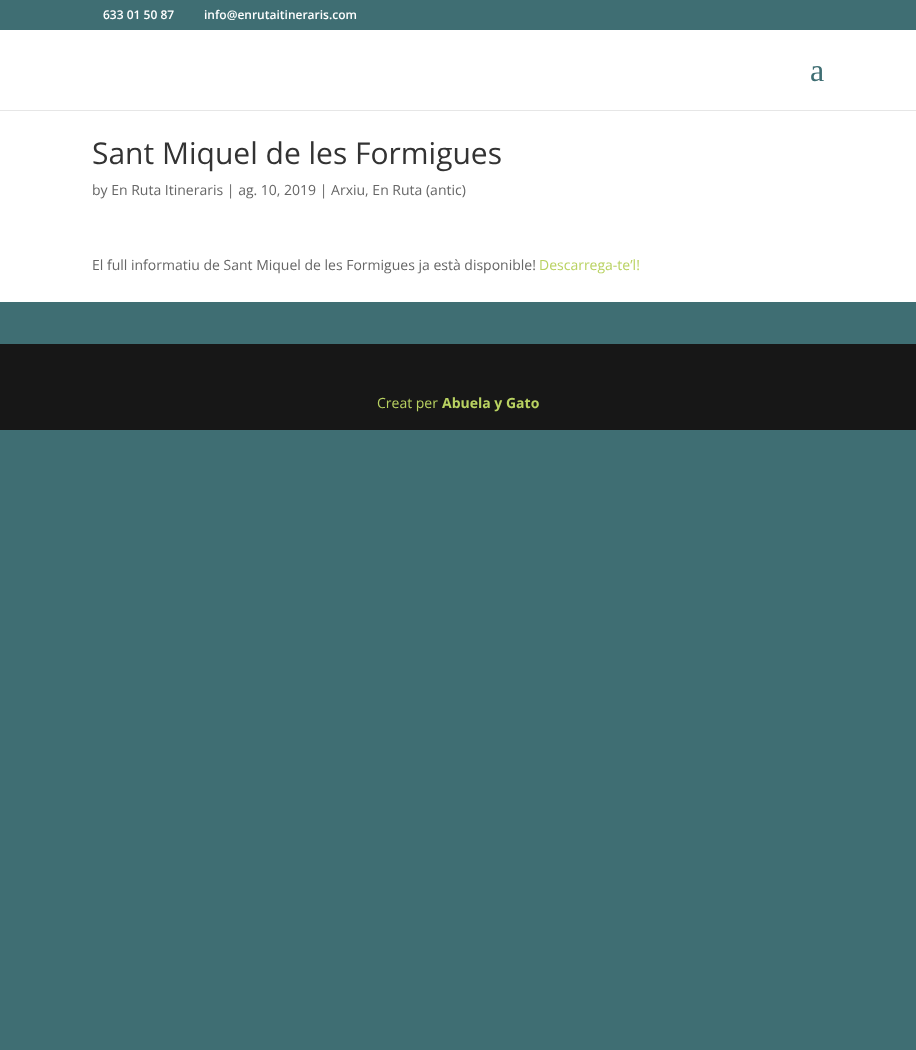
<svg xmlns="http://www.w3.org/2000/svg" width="916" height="1050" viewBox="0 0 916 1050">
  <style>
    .t1 { font: 600 12px Open Sans; fill: #fff; }
    .t2 { font: 32px Liberation Serif; fill: #3f6e73; }
    .t3 { font: 30px Open Sans; fill: #333; }
    .t4 { font: 14px Open Sans; fill: #666; }
    .t5 { font: 14px Open Sans; fill: #b9d261; }
    .t6 { font: bold 14px Open Sans; fill: #b9d261; }
  </style>
  <rect width="100%" height="100%" fill="#3f6e73"/>
  <text x="103" y="19" class="t1">633 01 50 87</text>
  <text x="204" y="19" class="t1">info@enrutaitineraris.com</text>
  <rect x="0" y="110" width="916" height="1" fill="#e6e6e6"/>
  <rect x="0" y="30" width="916" height="80" fill="#fff"/>
  <text x="810" y="81" class="t2">a</text>
  <rect x="0" y="111" width="916" height="191" fill="#fff"/>
  <text x="92" y="164" class="t3">Sant Miquel de les Formigues</text>
  <text x="92" y="195" class="t4">by En Ruta Itineraris | ag. 10, 2019 | Arxiu, En Ruta (antic)</text>
  <text x="92" y="270" class="t4">El full informatiu de Sant Miquel de les Formigues ja està disponible!</text>
  <text x="539" y="270" class="t5">Descarrega-te’l!</text>
  <rect x="0" y="344" width="916" height="86" fill="#171717"/>
  <text x="377" y="408" class="t5">Creat per</text>
  <text x="442" y="408" class="t6">Abuela y Gato</text>
</svg>
